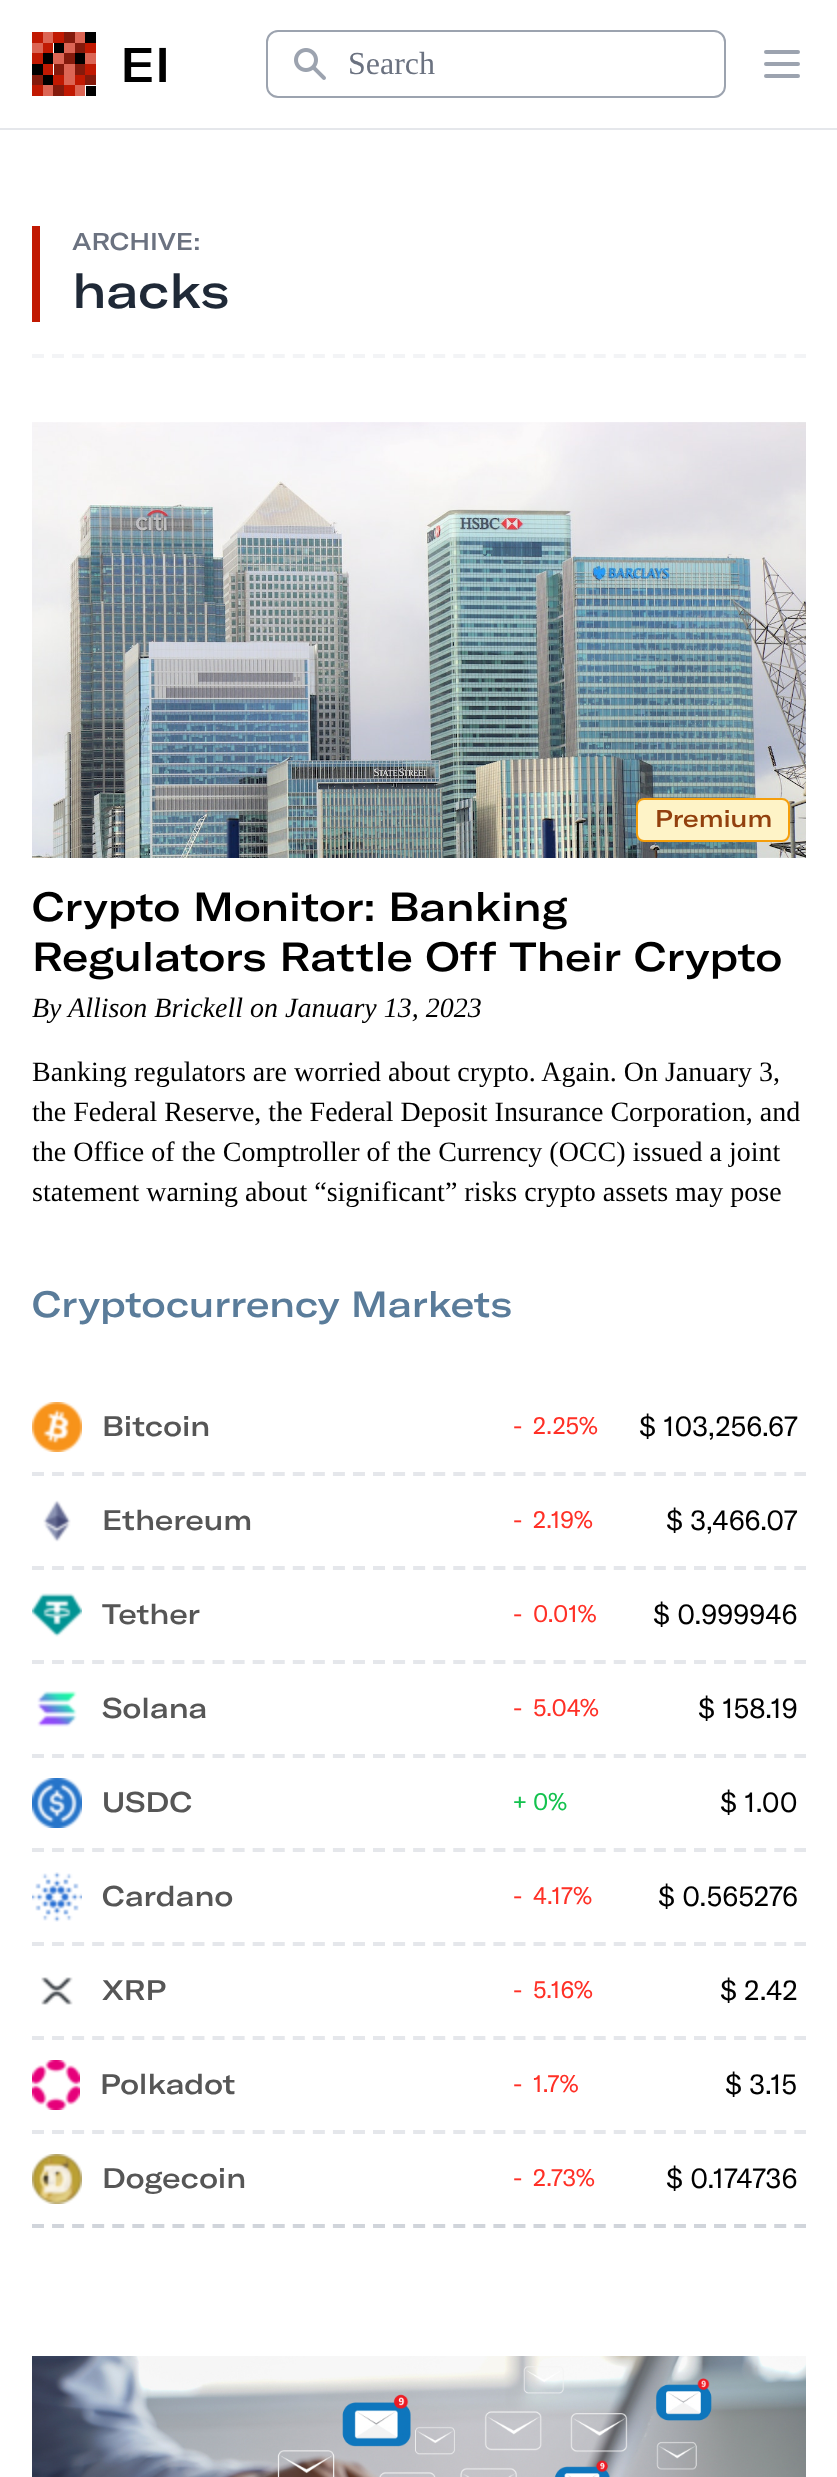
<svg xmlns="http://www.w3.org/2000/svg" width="837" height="2477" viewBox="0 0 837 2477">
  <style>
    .t1 { font: 500 48px GT America; fill: #000; }
    .t2 { font: 32px Liberation Serif; fill: #6b7280; }
    .t3 { font: 500 24px GT America; fill: #6b7280; }
    .t4 { font: 500 48px GT America; fill: #1f2937; }
    .t5 { font: 500 24px GT America; fill: #92400e; }
    .t6 { font: 500 40px GT America; fill: #000; }
    .t7 { font: italic 28px Liberation Serif; fill: #000; }
    .t8 { font: 28px Liberation Serif; fill: #000; }
    .t9 { font: 500 36px GT America; fill: #5a7c9a; }
    .t10 { font: 500 28px GT America; fill: #565656; }
    .t11 { font: 24px GT America; fill: #ff3026; }
    .t12 { font: 28px GT America; fill: #000; }
    .t13 { font: 24px GT America; fill: #13c24e; }
  </style>
  <rect width="100%" height="100%" fill="#fff"/>
  <rect x="0" y="128" width="837" height="2" fill="#e5e7eb"/>
  <image x="32" y="32" width="64" height="64" href="images/1.png"/>
  <text x="120" y="82" class="t1">EI</text>
  <rect x="267" y="31" width="458" height="66" rx="11" fill="none" stroke="#9ca3af" stroke-width="2"/>
  <image x="294" y="48" width="32" height="32" href="images/2.png"/>
  <text x="348" y="74" class="t2">Search</text>
  <path d="M766 52H798M766 64H798M766 76H798" fill="none" stroke="#9ca3af" stroke-width="4" stroke-linecap="round" stroke-linejoin="round"/>
  <path d="M32 356H806" fill="none" stroke="#f3f4f6" stroke-width="4" stroke-dasharray="12 8.06"/>
  <rect x="32" y="226" width="8" height="96" fill="#c11902"/>
  <text x="72" y="250" class="t3">ARCHIVE:</text>
  <text x="72" y="308" class="t4">hacks</text>
  <image x="32" y="422" width="774" height="436" href="images/3.png"/>
  <rect x="637" y="799" width="152" height="42" rx="7" fill="#fef3c7" stroke="#f59e0b" stroke-width="2"/>
  <text x="655" y="827" class="t5">Premium</text>
  <text x="32" y="921" class="t6">Crypto Monitor: Banking</text>
  <text x="32" y="971" class="t6">Regulators Rattle Off Their Crypto</text>
  <text x="32" y="1017" class="t7">By Allison Brickell on January 13, 2023</text>
  <text x="32" y="1081" class="t8">Banking regulators are worried about crypto. Again. On January 3,</text>
  <text x="32" y="1121" class="t8">the Federal Reserve, the Federal Deposit Insurance Corporation, and</text>
  <text x="32" y="1161" class="t8">the Office of the Comptroller of the Currency (OCC) issued a joint</text>
  <text x="32" y="1201" class="t8">statement warning about “significant” risks crypto assets may pose</text>
  <text x="32" y="1317" class="t9">Cryptocurrency Markets</text>
  <path d="M32 2226H806" fill="none" stroke="#d1d5db" stroke-width="4" stroke-dasharray="12 8.06"/>
  <path d="M32 1474H806" fill="none" stroke="#e5e7eb" stroke-width="4" stroke-dasharray="12 8.06"/>
  <image x="32" y="1402" width="50" height="50" href="images/4.png"/>
  <text x="102" y="1436" class="t10">Bitcoin</text>
  <text x="513" y="1434" class="t11">-</text>
  <text x="533" y="1434" class="t11">2.25%</text>
  <text x="639" y="1436" class="t12">$ 103,256.67</text>
  <path d="M32 1568H806" fill="none" stroke="#e5e7eb" stroke-width="4" stroke-dasharray="12 8.06"/>
  <image x="43" y="1500" width="28" height="42" href="images/5.png"/>
  <text x="102" y="1530" class="t10">Ethereum</text>
  <text x="513" y="1528" class="t11">-</text>
  <text x="533" y="1528" class="t11">2.19%</text>
  <text x="666" y="1530" class="t12">$ 3,466.07</text>
  <path d="M32 1662H806" fill="none" stroke="#e5e7eb" stroke-width="4" stroke-dasharray="12 8.06"/>
  <image x="32" y="1593" width="50" height="44" href="images/6.png"/>
  <text x="102" y="1624" class="t10">Tether</text>
  <text x="513" y="1622" class="t11">-</text>
  <text x="533" y="1622" class="t11">0.01%</text>
  <text x="653" y="1624" class="t12">$ 0.999946</text>
  <path d="M32 1756H806" fill="none" stroke="#e5e7eb" stroke-width="4" stroke-dasharray="12 8.06"/>
  <image x="37" y="1691" width="40" height="36" href="images/7.png"/>
  <text x="102" y="1718" class="t10">Solana</text>
  <text x="513" y="1716" class="t11">-</text>
  <text x="533" y="1716" class="t11">5.04%</text>
  <text x="698" y="1718" class="t12">$ 158.19</text>
  <path d="M32 1850H806" fill="none" stroke="#e5e7eb" stroke-width="4" stroke-dasharray="12 8.06"/>
  <image x="32" y="1778" width="50" height="50" href="images/8.png"/>
  <text x="102" y="1812" class="t10">USDC</text>
  <text x="513" y="1810" class="t13">+</text>
  <text x="533" y="1810" class="t13">0%</text>
  <text x="720" y="1812" class="t12">$ 1.00</text>
  <path d="M32 1944H806" fill="none" stroke="#e5e7eb" stroke-width="4" stroke-dasharray="12 8.06"/>
  <image x="32" y="1872" width="50" height="50" href="images/9.png"/>
  <text x="102" y="1906" class="t10">Cardano</text>
  <text x="513" y="1904" class="t11">-</text>
  <text x="533" y="1904" class="t11">4.17%</text>
  <text x="658" y="1906" class="t12">$ 0.565276</text>
  <path d="M32 2038H806" fill="none" stroke="#e5e7eb" stroke-width="4" stroke-dasharray="12 8.06"/>
  <image x="41" y="1977" width="32" height="28" href="images/10.png"/>
  <text x="102" y="2000" class="t10">XRP</text>
  <text x="513" y="1998" class="t11">-</text>
  <text x="533" y="1998" class="t11">5.16%</text>
  <text x="720" y="2000" class="t12">$ 2.42</text>
  <path d="M32 2132H806" fill="none" stroke="#e5e7eb" stroke-width="4" stroke-dasharray="12 8.06"/>
  <image x="32" y="2060" width="48" height="50" href="images/11.png"/>
  <text x="100" y="2094" class="t10">Polkadot</text>
  <text x="513" y="2092" class="t11">-</text>
  <text x="533" y="2092" class="t11">1.7%</text>
  <text x="725" y="2094" class="t12">$ 3.15</text>
  <image x="32" y="2154" width="50" height="50" href="images/12.png"/>
  <text x="102" y="2188" class="t10">Dogecoin</text>
  <text x="513" y="2186" class="t11">-</text>
  <text x="533" y="2186" class="t11">2.73%</text>
  <text x="666" y="2188" class="t12">$ 0.174736</text>
  <image x="32" y="2356" width="774" height="121" href="images/13.png"/>
</svg>
